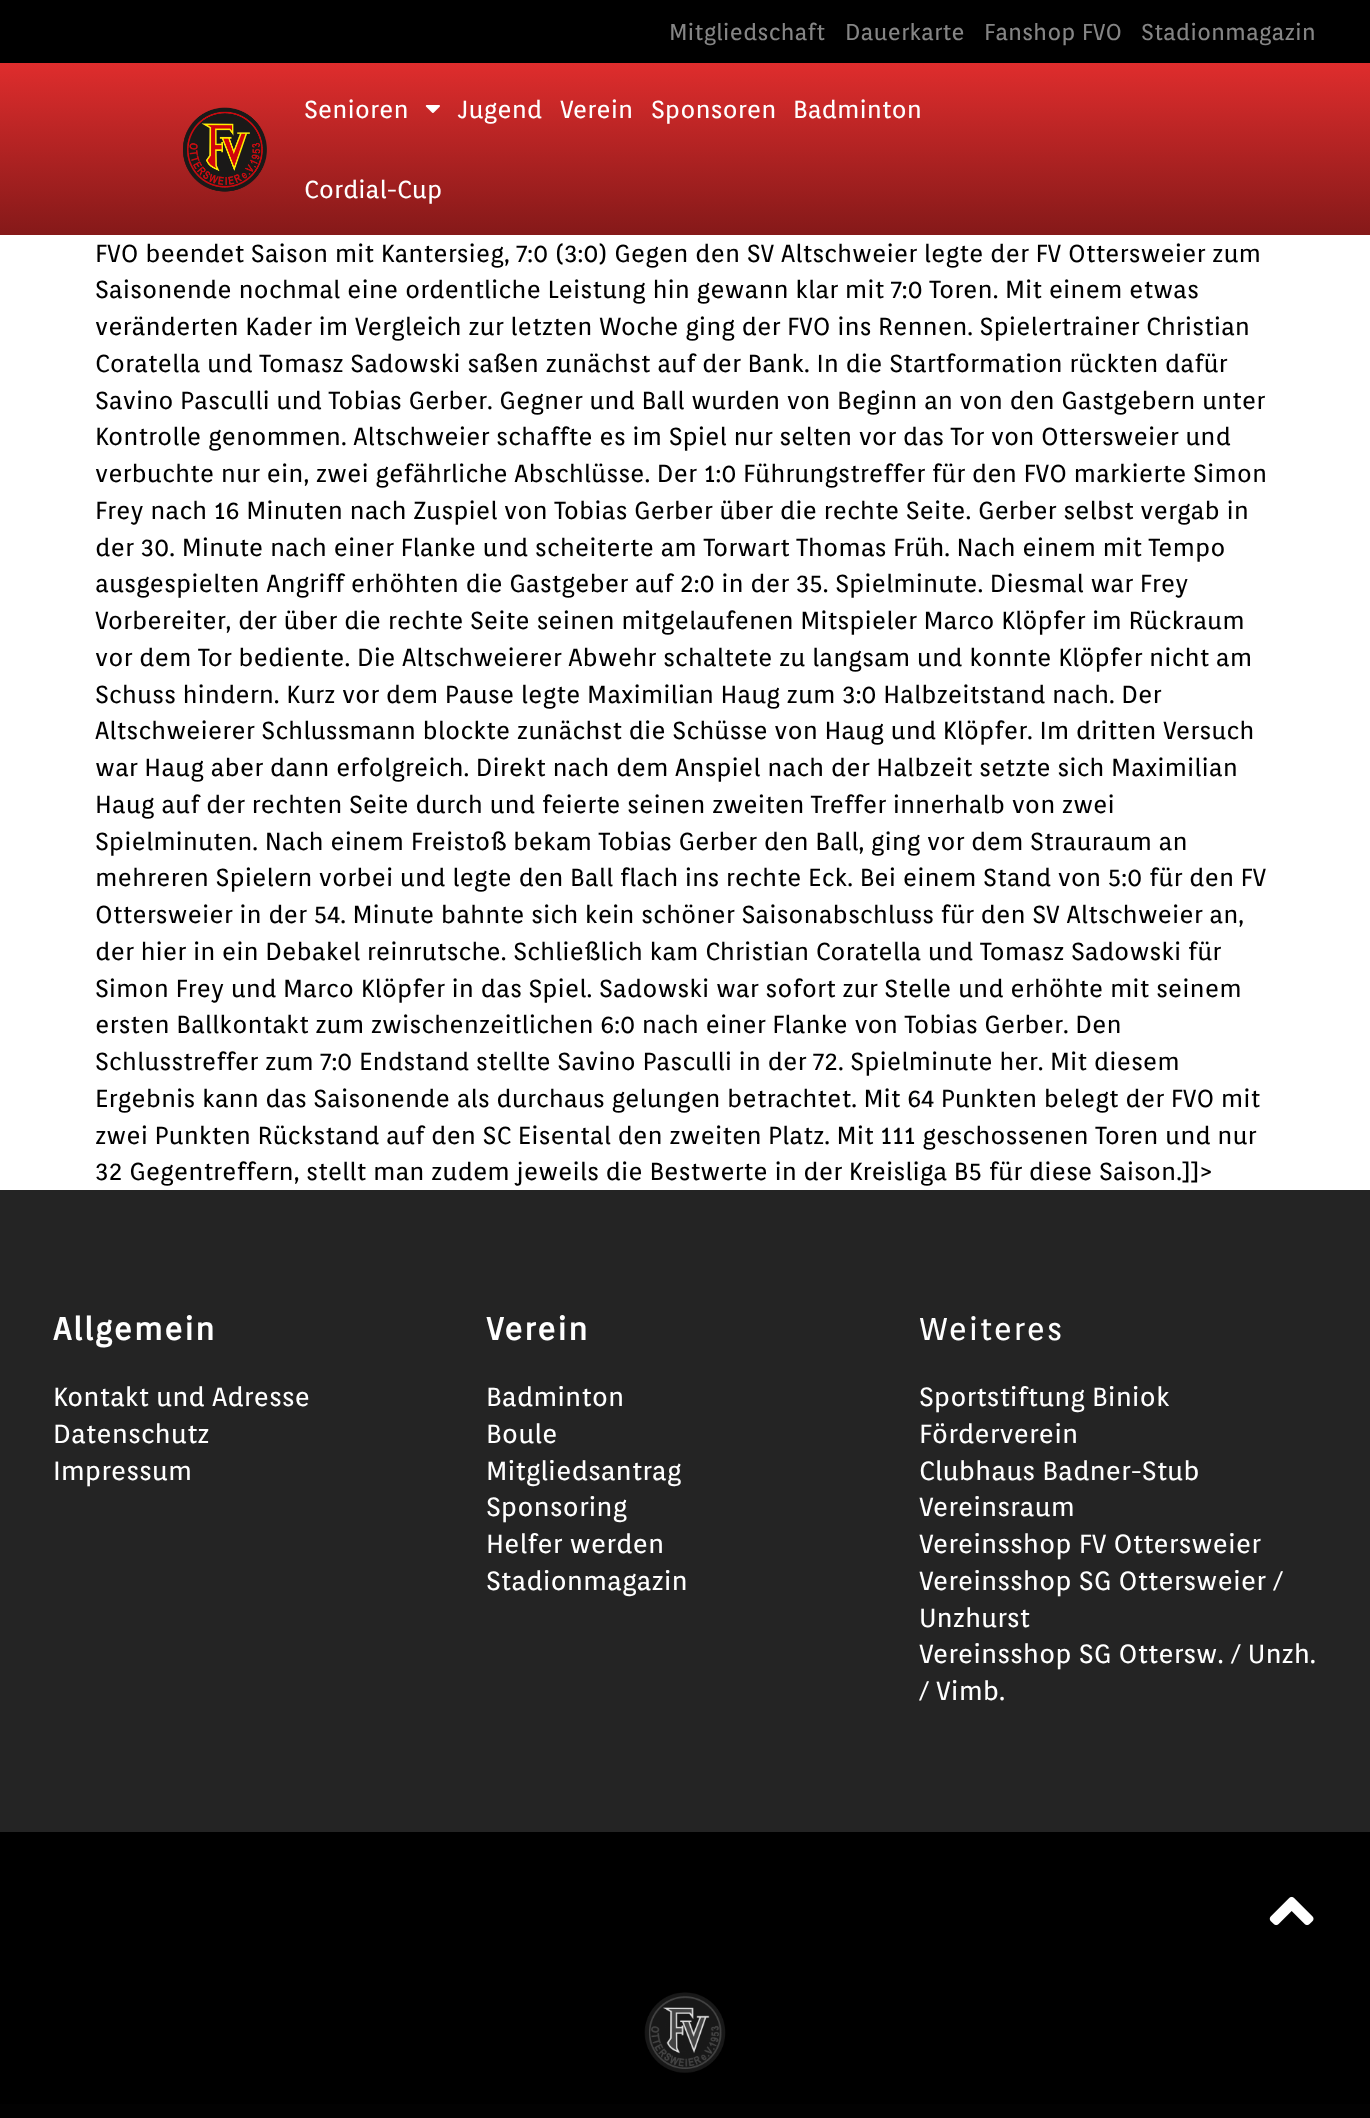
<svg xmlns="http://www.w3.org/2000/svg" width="1370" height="2118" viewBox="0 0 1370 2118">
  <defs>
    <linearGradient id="g1" gradientUnits="userSpaceOnUse" x1="685" y1="63" x2="685" y2="235"><stop offset="0" stop-color="rgb(223,45,45)"/><stop offset="1" stop-color="rgb(133,25,25)"/></linearGradient>
  </defs>
  <rect width="100%" height="100%" fill="rgb(255,255,255)"/>
  <rect x="0" y="0" width="1370" height="63" fill="rgb(0,0,0)"/>
  <g font-family="Orienta" font-size="22.75" fill="rgb(133,133,133)">
    <text x="669" y="40">Mitgliedschaft</text>
    <text x="845" y="40">Dauerkarte</text>
    <text x="984" y="40">Fanshop FVO</text>
    <text x="1141" y="40">Stadionmagazin</text>
  </g>
  <rect x="0" y="63" width="1370" height="172" fill="url(#g1)"/>
  <image x="183" y="107" width="84" height="85" href="pic1.png"/>
  <text x="304" y="118" font-family="Orienta" font-size="24.5" fill="rgb(255,255,255)">Senioren</text>
  <image x="425" y="105" width="15" height="8" href="pic2.png"/>
  <g font-family="Orienta" font-size="24.5" fill="rgb(255,255,255)">
    <text x="458" y="118">Jugend</text>
    <text x="560" y="118">Verein</text>
    <text x="651" y="118">Sponsoren</text>
    <text x="793" y="118">Badminton</text>
    <text x="304" y="198">Cordial-Cup</text>
  </g>
  <g font-family="Orienta" font-size="24.5" fill="rgb(0,0,0)">
    <text>
      <tspan x="95" y="262">FVO beendet Saison mit Kantersieg, 7:0 (3:0) Gegen den SV Altschweier legte der FV Ottersweier zum</tspan>
      <tspan x="95" y="298">Saisonende nochmal eine ordentliche Leistung hin gewann klar mit 7:0 Toren. Mit einem etwas</tspan>
      <tspan x="95" y="335">veränderten Kader im Vergleich zur letzten Woche ging der FVO ins Rennen. Spielertrainer Christian</tspan>
      <tspan x="95" y="372">Coratella und Tomasz Sadowski saßen zunächst auf der Bank. In die Startformation rückten dafür</tspan>
      <tspan x="95" y="409">Savino Pasculli und Tobias Gerber. Gegner und Ball wurden von Beginn an von den Gastgebern unter</tspan>
      <tspan x="95" y="445">Kontrolle genommen. Altschweier schaffte es im Spiel nur selten vor das Tor von Ottersweier und</tspan>
      <tspan x="95" y="482">verbuchte nur ein, zwei gefährliche Abschlüsse. Der 1:0 Führungstreffer für den FVO markierte Simon</tspan>
      <tspan x="95" y="519">Frey nach 16 Minuten nach Zuspiel von Tobias Gerber über die rechte Seite. Gerber selbst vergab in</tspan>
      <tspan x="95" y="556">der 30. Minute nach einer Flanke und scheiterte am Torwart Thomas Früh. Nach einem mit Tempo</tspan>
      <tspan x="95" y="592">ausgespielten Angriff erhöhten die Gastgeber auf 2:0 in der 35. Spielminute. Diesmal war Frey</tspan>
      <tspan x="95" y="629">Vorbereiter, der über die rechte Seite seinen mitgelaufenen Mitspieler Marco Klöpfer im Rückraum</tspan>
      <tspan x="95" y="666">vor dem Tor bediente. Die Altschweierer Abwehr schaltete zu langsam und konnte Klöpfer nicht am</tspan>
      <tspan x="95" y="703">Schuss hindern. Kurz vor dem Pause legte Maximilian Haug zum 3:0 Halbzeitstand nach. Der</tspan>
      <tspan x="95" y="739">Altschweierer Schlussmann blockte zunächst die Schüsse von Haug und Klöpfer. Im dritten Versuch</tspan>
      <tspan x="95" y="776">war Haug aber dann erfolgreich. Direkt nach dem Anspiel nach der Halbzeit setzte sich Maximilian</tspan>
      <tspan x="95" y="813">Haug auf der rechten Seite durch und feierte seinen zweiten Treffer innerhalb von zwei</tspan>
      <tspan x="95" y="850">Spielminuten. Nach einem Freistoß bekam Tobias Gerber den Ball, ging vor dem Strauraum an</tspan>
      <tspan x="95" y="886">mehreren Spielern vorbei und legte den Ball flach ins rechte Eck. Bei einem Stand von 5:0 für den FV</tspan>
      <tspan x="95" y="923">Ottersweier in der 54. Minute bahnte sich kein schöner Saisonabschluss für den SV Altschweier an,</tspan>
      <tspan x="95" y="960">der hier in ein Debakel reinrutsche. Schließlich kam Christian Coratella und Tomasz Sadowski für</tspan>
      <tspan x="95" y="997">Simon Frey und Marco Klöpfer in das Spiel. Sadowski war sofort zur Stelle und erhöhte mit seinem</tspan>
      <tspan x="95" y="1033">ersten Ballkontakt zum zwischenzeitlichen 6:0 nach einer Flanke von Tobias Gerber. Den</tspan>
      <tspan x="95" y="1070">Schlusstreffer zum 7:0 Endstand stellte Savino Pasculli in der 72. Spielminute her. Mit diesem</tspan>
      <tspan x="95" y="1107">Ergebnis kann das Saisonende als durchaus gelungen betrachtet. Mit 64 Punkten belegt der FVO mit</tspan>
      <tspan x="95" y="1144">zwei Punkten Rückstand auf den SC Eisental den zweiten Platz. Mit 111 geschossenen Toren und nur</tspan>
      <tspan x="95" y="1180">32 Gegentreffern, stellt man zudem jeweils die Bestwerte in der Kreisliga B5 für diese Saison.]]&gt;</tspan>
    </text>
  </g>
  <rect x="0" y="1190" width="1370" height="642" fill="rgb(36,36,36)"/>
  <text x="53" y="1340" font-family="Orienta" font-size="31.5" font-weight="bold" letter-spacing="1.5" fill="rgb(255,255,255)">Allgemein</text>
  <g font-family="Orienta" font-size="26.25" fill="rgb(255,255,255)">
    <text>
      <tspan x="53" y="1406">Kontakt und Adresse</tspan>
      <tspan x="53" y="1443">Datenschutz</tspan>
      <tspan x="53" y="1480">Impressum</tspan>
    </text>
  </g>
  <text x="486" y="1340" font-family="Orienta" font-size="31.5" font-weight="bold" letter-spacing="1.5" fill="rgb(255,255,255)">Verein</text>
  <g font-family="Orienta" font-size="26.25" fill="rgb(255,255,255)">
    <text>
      <tspan x="486" y="1406">Badminton</tspan>
      <tspan x="486" y="1443">Boule</tspan>
      <tspan x="486" y="1480">Mitgliedsantrag</tspan>
      <tspan x="486" y="1516">Sponsoring</tspan>
      <tspan x="486" y="1553">Helfer werden</tspan>
      <tspan x="486" y="1590">Stadionmagazin</tspan>
    </text>
  </g>
  <text x="919" y="1340" font-family="Orienta" font-size="31.5" letter-spacing="1.5" fill="rgb(255,255,255)">Weiteres</text>
  <g font-family="Orienta" font-size="26.25" fill="rgb(255,255,255)">
    <text>
      <tspan x="919" y="1406">Sportstiftung Biniok</tspan>
      <tspan x="919" y="1443">Förderverein</tspan>
      <tspan x="919" y="1480">Clubhaus Badner-Stub</tspan>
      <tspan x="919" y="1516">Vereinsraum</tspan>
      <tspan x="919" y="1553">Vereinsshop FV Ottersweier</tspan>
      <tspan x="919" y="1590">Vereinsshop SG Ottersweier /</tspan>
      <tspan x="919" y="1627">Unzhurst</tspan>
      <tspan x="919" y="1663">Vereinsshop SG Ottersw. / Unzh.</tspan>
      <tspan x="919" y="1700">/ Vimb.</tspan>
    </text>
  </g>
  <rect x="0" y="1832" width="1370" height="272" fill="rgb(0,0,0)"/>
  <image x="1269" y="1896" width="45" height="30" href="pic3.png"/>
  <image x="644" y="1992" width="82" height="81" href="pic4.png"/>
  <rect x="0" y="2104" width="1370" height="14" fill="rgb(2,2,2)"/>
</svg>
